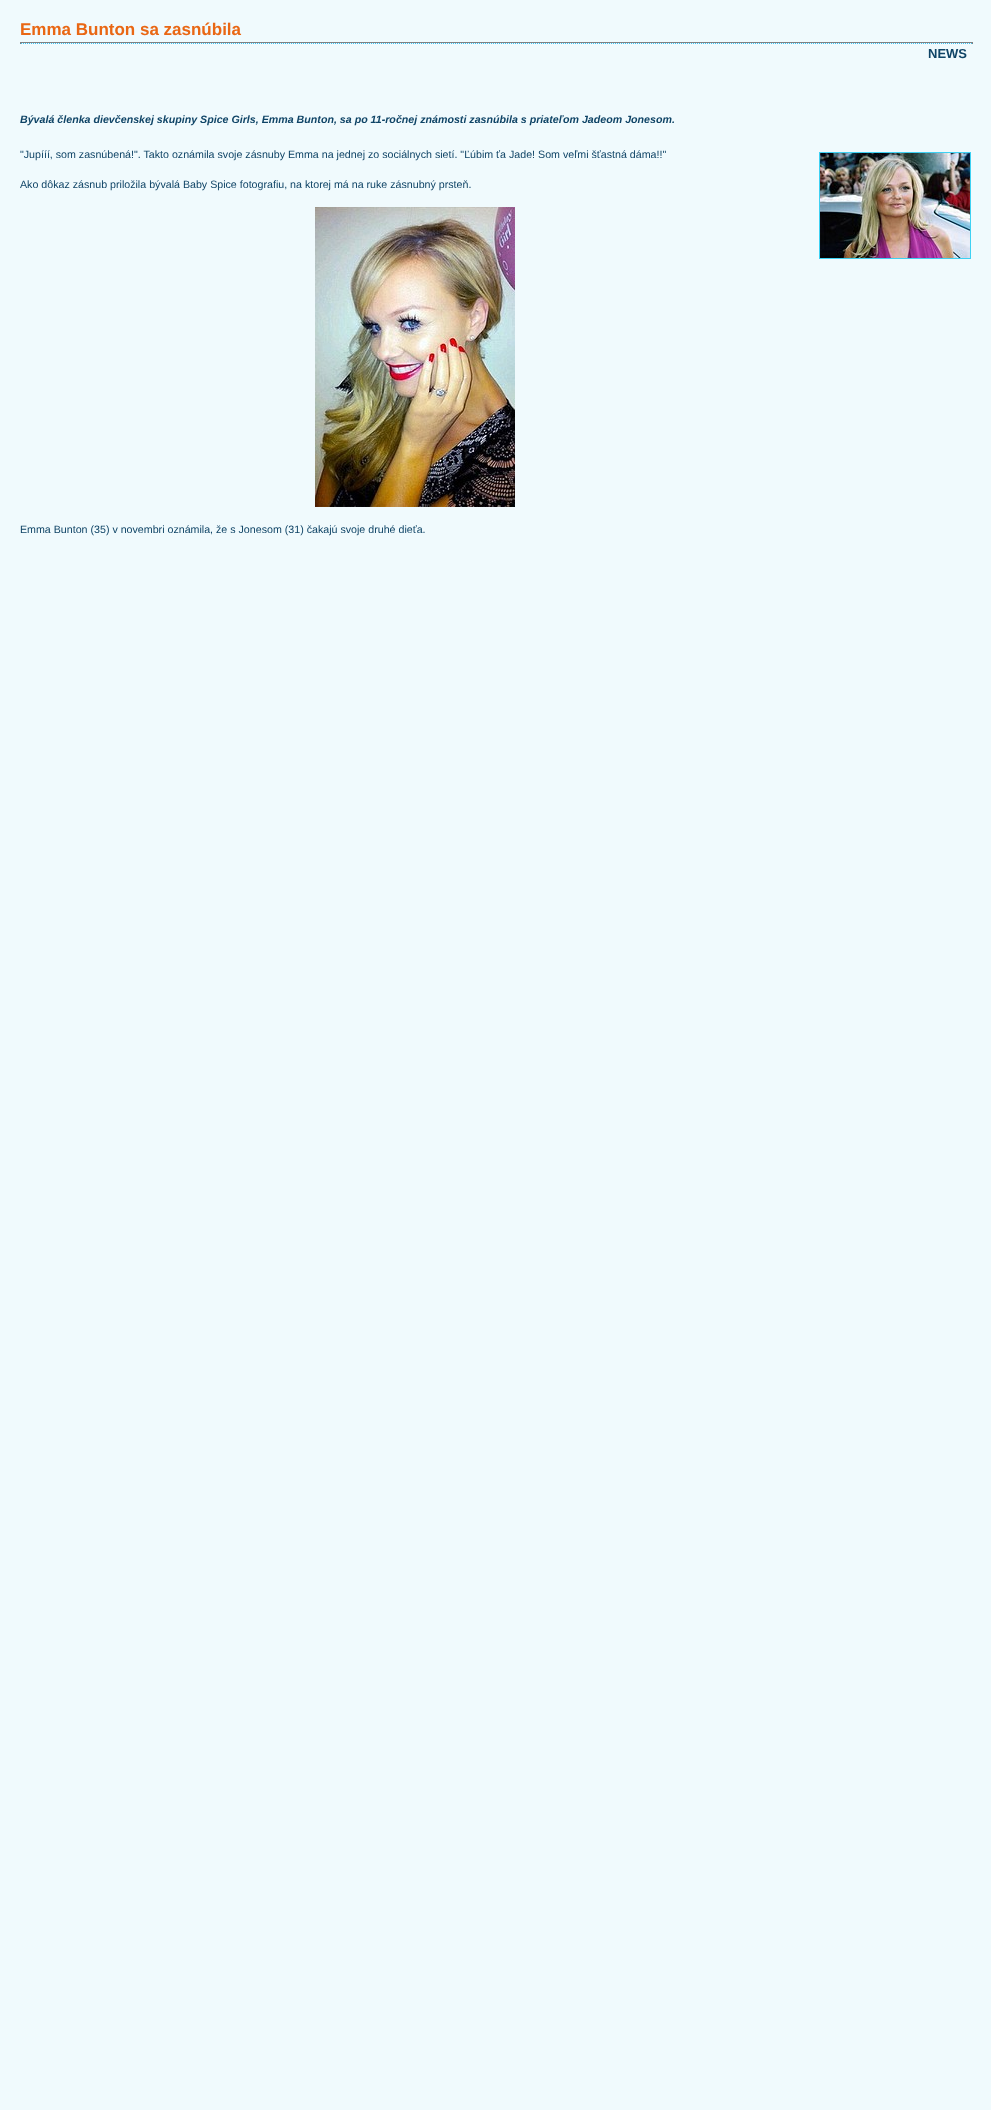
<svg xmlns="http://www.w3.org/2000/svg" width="991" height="2110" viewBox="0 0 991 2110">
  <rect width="100%" height="100%" fill="rgb(240,250,253)"/>
  <text x="20" y="35" font-family="Liberation Sans" font-size="17" font-weight="bold" fill="rgb(233,103,20)">Emma Bunton sa zasnúbila</text>
  <image x="21" y="43" width="951" height="1" href="pic1.png"/>
  <rect x="20" y="42" width="953" height="1" fill="rgb(128,128,128)"/>
  <rect x="972" y="42" width="1" height="2" fill="rgb(128,128,128)"/>
  <rect x="20" y="42" width="1" height="2" fill="rgb(128,128,128)"/>
  <text x="928" y="58" font-family="Liberation Sans" font-size="13" font-weight="bold" fill="rgb(15,68,102)">NEWS</text>
  <text x="20" y="123" font-family="Liberation Sans" font-size="10.67" font-weight="bold" font-style="italic" fill="rgb(15,68,102)">Bývalá členka dievčenskej skupiny Spice Girls, Emma Bunton, sa po 11-ročnej známosti zasnúbila s priateľom Jadeom Jonesom.</text>
  <text x="20" y="158" font-family="Liberation Sans" font-size="10.67" fill="rgb(15,68,102)">"Jupííí, som zasnúbená!". Takto oznámila svoje zásnuby Emma na jednej zo sociálnych sietí. "Ľúbim ťa Jade! Som veľmi šťastná dáma!!"</text>
  <rect x="819.5" y="152.5" width="151" height="106" fill="none" stroke="rgb(62,209,243)"/>
  <image x="820" y="153" width="150" height="105" href="pic2.png"/>
  <text x="20" y="188" font-family="Liberation Sans" font-size="10.67" fill="rgb(15,68,102)">Ako dôkaz zásnub priložila bývalá Baby Spice fotografiu, na ktorej má na ruke zásnubný prsteň.</text>
  <image x="315" y="207" width="200" height="300" href="pic3.png"/>
  <text x="20" y="533" font-family="Liberation Sans" font-size="10.67" fill="rgb(15,68,102)">Emma Bunton (35) v novembri oznámila, že s Jonesom (31) čakajú svoje druhé dieťa.</text>
</svg>
